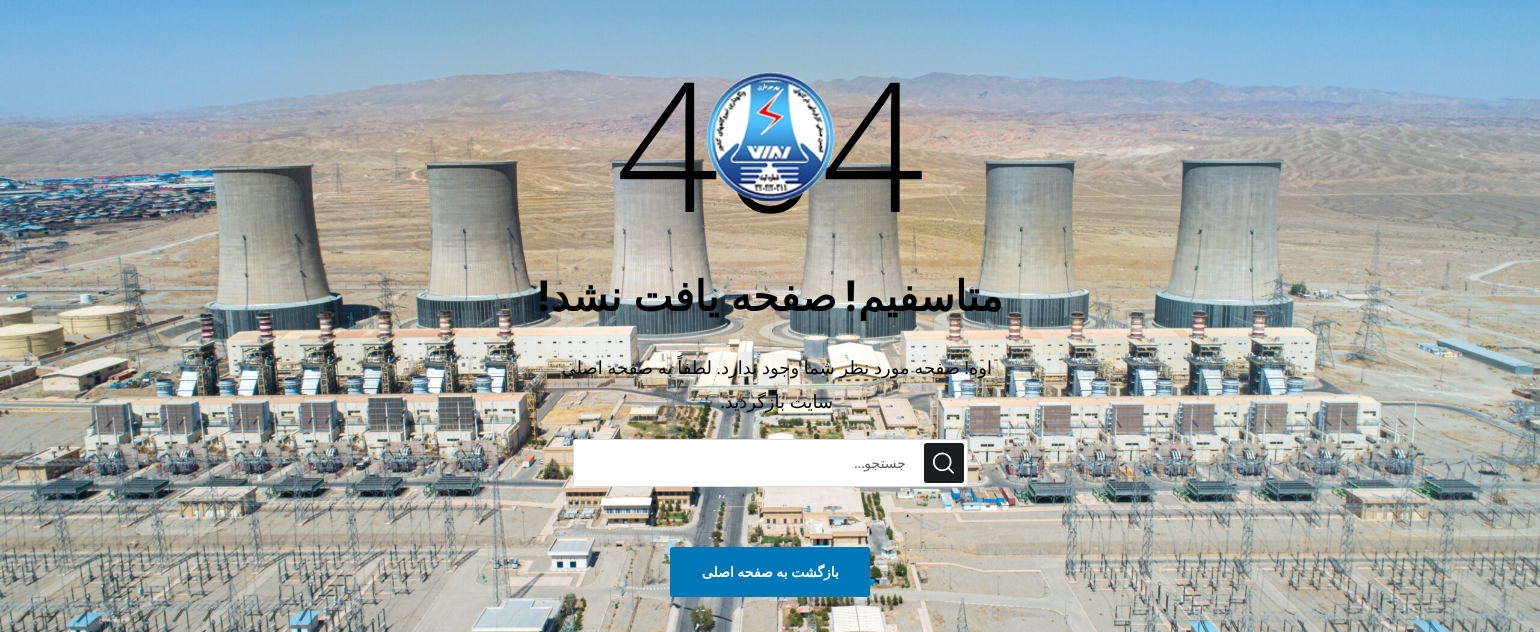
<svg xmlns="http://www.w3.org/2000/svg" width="1540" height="632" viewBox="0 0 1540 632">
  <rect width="100%" height="100%" fill="rgb(255,255,255)"/>
  <image x="0" y="0" width="1540" height="632" href="pic1.png"/>
  <text x="616" y="212" font-family="Open Sans" font-size="180" font-weight="300" fill="rgb(0,0,0)">404</text>
  <image x="706" y="72" width="129" height="131" href="pic2.png"/>
  <text x="1003" y="311" font-family="DejaVu Sans" font-size="42" font-weight="bold" direction="rtl" fill="rgb(0,0,0)">متاسفیم</text>
  <text x="858" y="311" font-family="Inter" font-size="42" font-weight="bold" direction="rtl" fill="rgb(0,0,0)">!</text>
  <text x="837" y="311" word-spacing="-2" font-family="DejaVu Sans" font-size="42" font-weight="bold" direction="rtl" fill="rgb(0,0,0)">صفحه یافت نشد</text>
  <text x="551" y="311" font-family="Inter" font-size="42" font-weight="bold" direction="rtl" fill="rgb(0,0,0)">!</text>
  <text x="992" y="374" font-family="DejaVu Sans" font-size="18" direction="rtl" fill="rgb(0,0,0)">اوه</text>
  <text x="969" y="374" font-family="Open Sans" font-size="18" direction="rtl" fill="rgb(0,0,0)">!</text>
  <text x="960" y="374" word-spacing="-1" font-family="DejaVu Sans" font-size="18" direction="rtl" fill="rgb(0,0,0)">صفحه مورد نظر شما وجود ندارد</text>
  <text x="721" y="374" font-family="Open Sans" font-size="18" direction="rtl" fill="rgb(0,0,0)">.</text>
  <g font-family="DejaVu Sans" font-size="18" direction="rtl" fill="rgb(0,0,0)">
    <text x="712" y="374" word-spacing="-1">لطفاً به صفحه اصلی</text>
    <text x="833" y="408" word-spacing="-1">سایت بازگردید</text>
  </g>
  <text x="725" y="408" font-family="Open Sans" font-size="18" direction="rtl" fill="rgb(0,0,0)">.</text>
  <rect x="573.5" y="439.5" width="394" height="47" rx="2.5" fill="rgb(255,255,255)" stroke="rgb(219,219,219)"/>
  <rect x="924" y="443" width="40" height="40" rx="3" fill="rgb(27,29,33)"/>
  <image x="933" y="452" width="21" height="22" href="pic3.png"/>
  <text x="906" y="468" font-family="DejaVu Sans" font-size="14" direction="rtl" fill="rgb(95,95,95)">جستجو</text>
  <text x="865" y="468" font-family="Open Sans" font-size="14" direction="rtl" fill="rgb(95,95,95)">…</text>
  <rect x="670" y="547" width="200" height="50" rx="3" fill="rgb(0,119,182)"/>
  <text x="839" y="577" word-spacing="-1" font-family="DejaVu Sans" font-size="14" font-weight="bold" direction="rtl" fill="rgb(255,255,255)">بازگشت به صفحه اصلی</text>
</svg>
